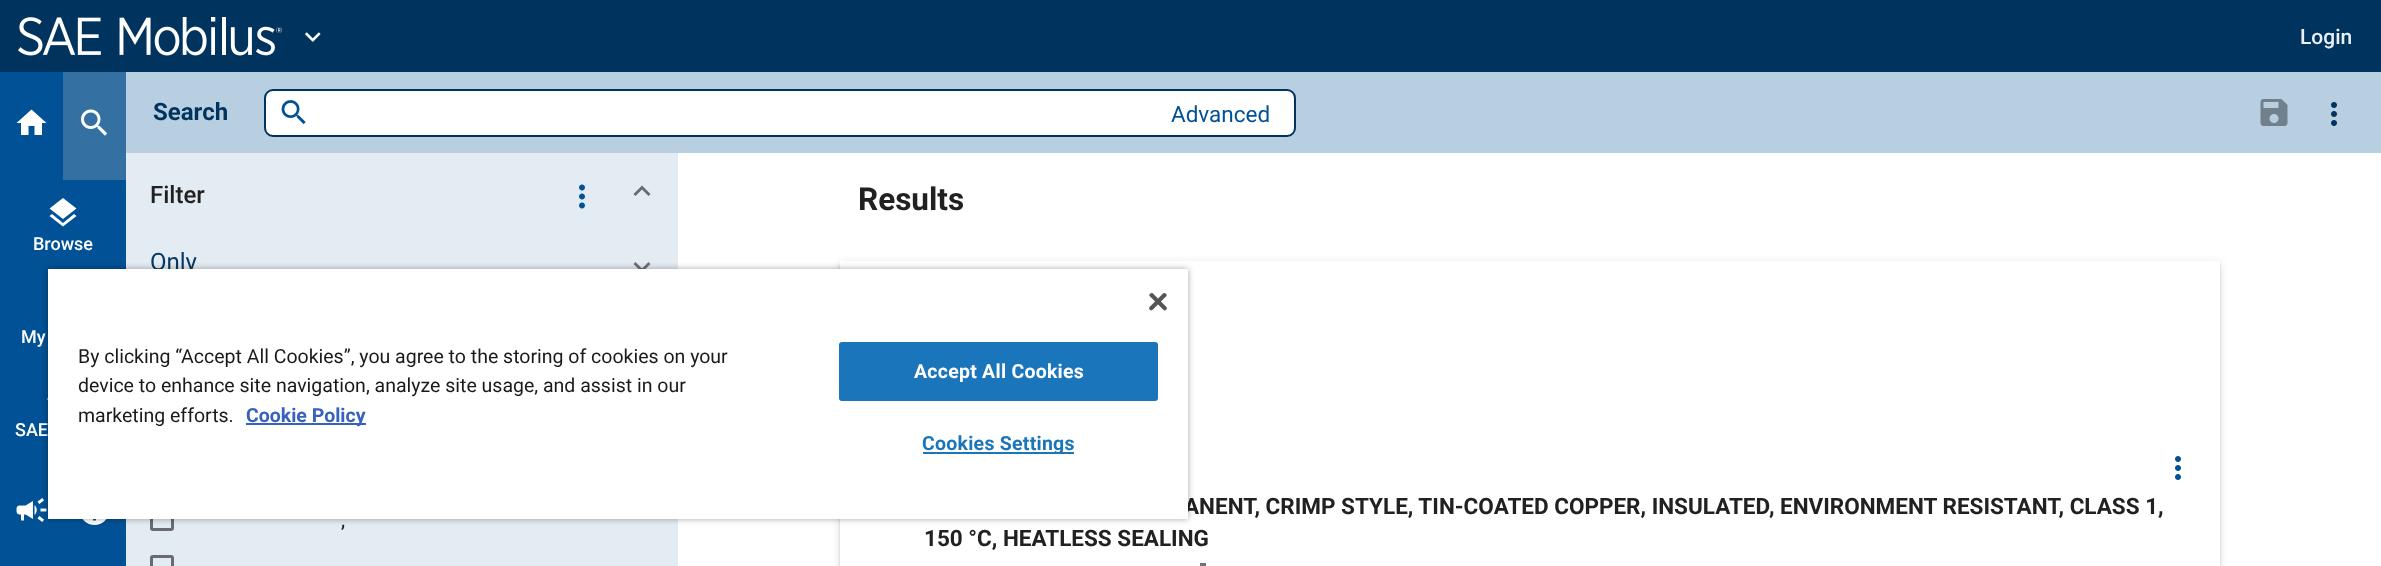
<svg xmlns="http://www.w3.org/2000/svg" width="2381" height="566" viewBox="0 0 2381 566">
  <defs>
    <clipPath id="clip1"><path d="M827 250H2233V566H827ZM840 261H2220V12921H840Z" clip-rule="evenodd"/></clipPath>
    <clipPath id="clip2"><path d="M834 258H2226V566H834ZM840 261H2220V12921H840Z" clip-rule="evenodd"/></clipPath>
  </defs>
  <rect width="100%" height="100%" fill="rgb(255,255,255)"/>
  <rect x="0" y="0" width="2381" height="72" fill="rgb(0,51,93)"/>
  <image x="18" y="17" width="264" height="39" href="pic1.png"/>
  <image x="305" y="32" width="16" height="10" href="pic2.png"/>
  <text x="2300" y="44" font-family="Roboto" font-size="21" font-weight="500" fill="rgb(233,240,246)">Login</text>
  <rect x="0" y="72" width="126" height="494" fill="rgb(0,81,149)"/>
  <path d="M28.5 135H21V123H16.5L31.5 109.5L46.5 123H42V135H34.5V126H28.5Z" fill="rgb(255,255,255)"/>
  <rect x="63" y="72" width="63" height="108" fill="rgb(52,113,162)"/>
  <image x="81" y="109" width="27" height="27" href="pic3.png"/>
  <path d="M63 219L49.5 208.5L63 198L76.5 208.5ZM63 223L74 214L76.5 216L63 226.5L49.5 216L52 214Z" fill="rgb(255,255,255)"/>
  <g font-family="Roboto" font-size="18" font-weight="500" fill="rgb(255,255,255)">
    <text x="33" y="250">Browse</text>
    <text x="21" y="343">My</text>
  </g>
  <image x="46" y="398" width="2" height="2" href="pic4.png"/>
  <text x="15" y="436" font-family="Roboto" font-size="18" font-weight="500" fill="rgb(255,255,255)">SAE</text>
  <image x="16" y="498" width="31" height="24" href="pic5.png"/>
  <image x="82" y="519" width="25" height="6" href="pic6.png"/>
  <rect x="126" y="72" width="2255" height="81" fill="rgb(184,207,225)"/>
  <text x="153" y="120" font-family="Roboto" font-size="24" font-weight="bold" fill="rgb(0,51,93)">Search</text>
  <rect x="265" y="90" width="1030" height="46" rx="8" fill="rgb(255,255,255)" stroke="rgb(0,51,93)" stroke-width="2"/>
  <image x="281" y="100" width="25" height="25" href="pic7.png"/>
  <text x="1171" y="122" font-family="Roboto" font-size="22.5" fill="rgb(0,81,149)">Advanced</text>
  <image x="2260" y="99" width="28" height="27" href="pic8.png"/>
  <image x="2331" y="102" width="6" height="24" href="pic9.png"/>
  <rect x="126" y="153" width="552" height="413" fill="rgb(227,235,243)"/>
  <text x="150" y="203" font-family="Roboto" font-size="24" font-weight="500" fill="rgb(33,33,33)">Filter</text>
  <path d="M633.5 194L642 185.5V189.5L635.5 196ZM642 185.5L650.5 194L648.5 196L642 189.5Z" fill="rgb(104,108,112)"/>
  <image x="579" y="184" width="6" height="25" href="pic10.png"/>
  <text x="150" y="270" font-family="Roboto" font-size="24" fill="rgb(9,58,99)">Only</text>
  <path d="M650.5 264L642 272.5V268.5L648.5 262ZM642 272.5L633.5 264L635.5 262L642 268.5Z" fill="rgb(109,113,117)"/>
  <rect x="151.5" y="508.5" width="21" height="21" rx="1.5" fill="none" stroke="rgb(104,108,112)" stroke-width="3"/>
  <text x="341" y="527" font-family="Roboto" font-size="21" fill="rgb(33,33,33)">,</text>
  <rect x="151.5" y="556.5" width="21" height="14" rx="1.5" fill="none" stroke="rgb(104,108,112)" stroke-width="3"/>
  <text x="858" y="210" font-family="Roboto" font-size="31.5" font-weight="bold" fill="rgb(33,33,33)">Results</text>
  <g clip-path="url(#clip1)">
    <rect x="840" y="263" width="1380" height="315" fill="rgba(0,0,0,0.12)" filter="blur(4px)"/>
  </g>
  <g clip-path="url(#clip2)">
    <rect x="840" y="264" width="1380" height="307" fill="rgba(0,0,0,0.14)" filter="blur(1.5px)"/>
  </g>
  <image x="2175" y="456" width="6" height="24" href="pic11.png"/>
  <g font-family="Roboto" font-size="22.5" font-weight="bold" fill="rgb(33,33,33)">
    <text x="1184" y="514">ANENT, CRIMP STYLE, TIN-COATED COPPER, INSULATED, ENVIRONMENT RESISTANT, CLASS 1,</text>
    <text x="924" y="546">150 °C, HEATLESS SEALING</text>
  </g>
  <rect x="1200" y="563" width="6" height="3" fill="rgb(113,114,117)"/>
  <rect x="48" y="269" width="1140" height="250" fill="rgba(0,0,0,0.35)" filter="blur(3px)"/>
  <rect x="48" y="269" width="1140" height="250" fill="rgb(255,255,255)"/>
  <image x="1149" y="293" width="18" height="18" href="pic12.png"/>
  <g font-family="Roboto" font-size="19.5" fill="rgb(26,26,26)">
    <text>
      <tspan x="78" y="363">By clicking “Accept All Cookies”, you agree to the storing of cookies on your</tspan>
      <tspan x="78" y="392">device to enhance site navigation, analyze site usage, and assist in our</tspan>
      <tspan x="78" y="422">marketing efforts.</tspan>
    </text>
  </g>
  <rect x="246" y="423" width="120" height="2" fill="rgb(56,96,190)"/>
  <text x="246" y="422" font-family="Roboto" font-size="19.5" font-weight="bold" fill="rgb(56,96,190)">Cookie Policy</text>
  <rect x="840" y="343" width="317" height="57" rx="2" fill="rgb(27,117,187)" stroke="rgb(27,117,187)" stroke-width="2"/>
  <text x="914" y="378" font-family="Roboto" font-size="19.5" font-weight="bold" letter-spacing="0.25" fill="rgb(255,255,255)">Accept All Cookies</text>
  <rect x="923" y="452" width="151" height="2" fill="rgb(27,117,187)"/>
  <text x="922" y="450" font-family="Roboto" font-size="19.5" font-weight="bold" letter-spacing="0.25" fill="rgb(27,117,187)">Cookies Settings</text>
</svg>
